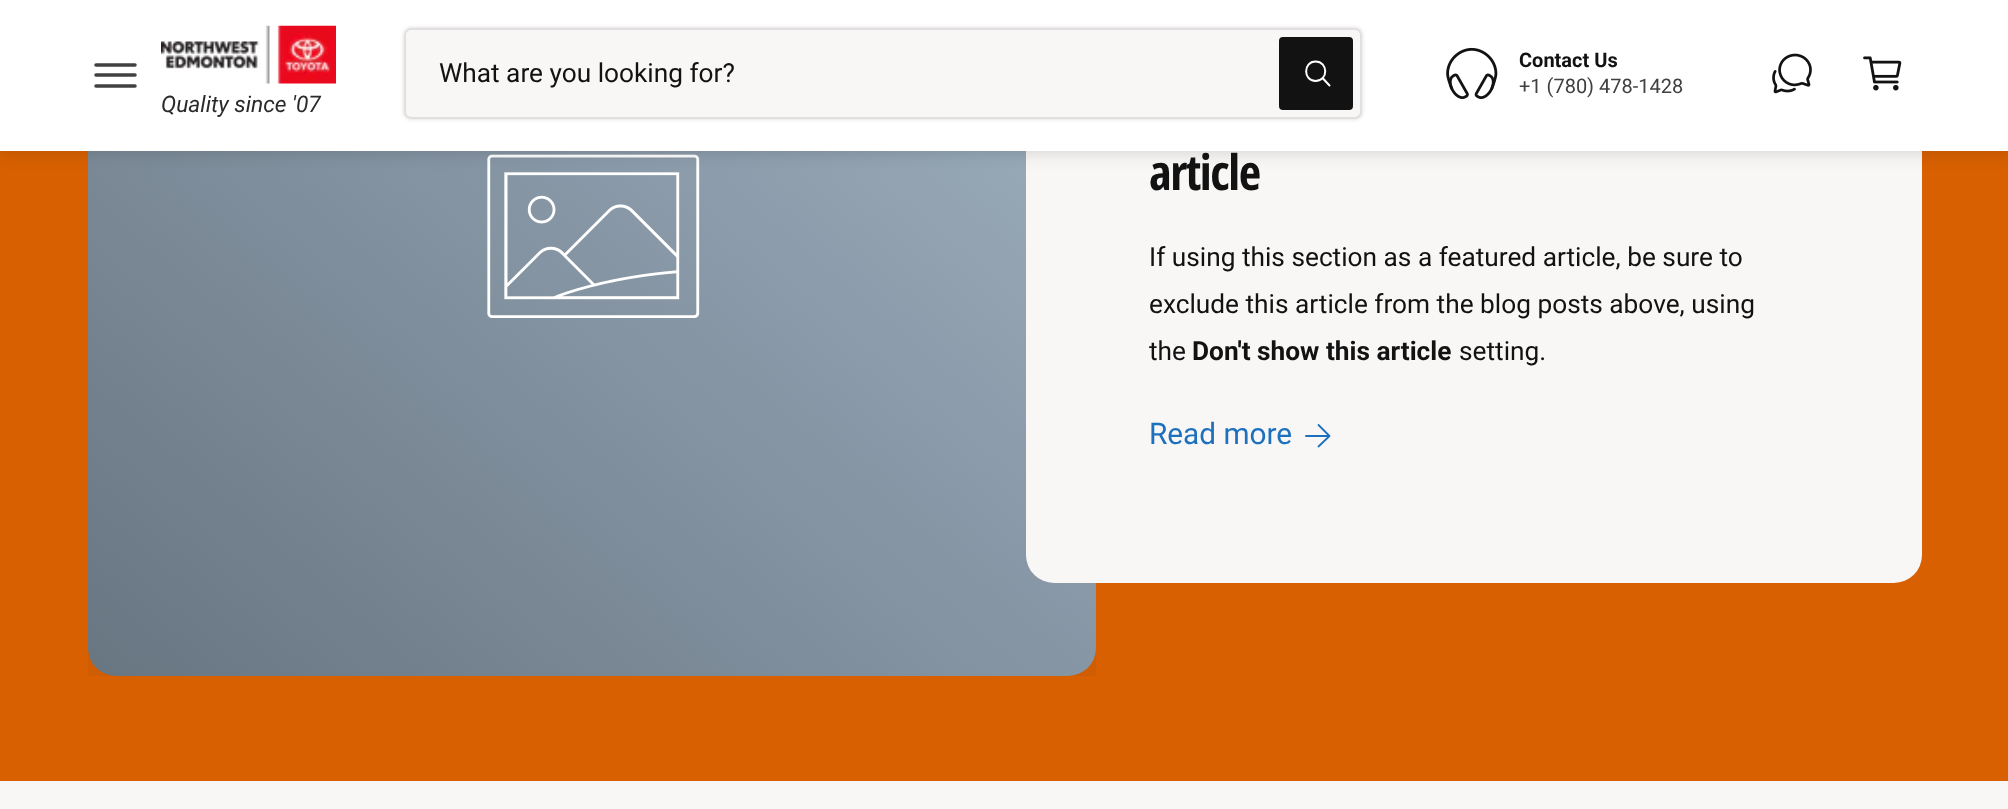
<svg xmlns="http://www.w3.org/2000/svg" width="2008" height="809" viewBox="0 0 2008 809">
  <defs>
    <linearGradient id="g1" gradientUnits="userSpaceOnUse" x1="158" y1="737" x2="1025" y2="-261"><stop offset="0" stop-color="rgb(108,122,135)"/><stop offset="1" stop-color="rgb(172,190,207)"/></linearGradient>
    <clipPath id="clip1"><path d="M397 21H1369V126H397ZM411 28H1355C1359 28 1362 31 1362 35V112C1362 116 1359 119 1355 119H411C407 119 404 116 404 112V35C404 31 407 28 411 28Z" clip-rule="evenodd"/></clipPath>
  </defs>
  <rect width="100%" height="100%" fill="rgb(249,247,246)"/>
  <rect x="0" y="151" width="2008" height="630" fill="rgb(216,96,0)"/>
  <rect x="88" y="-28" width="1008" height="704" rx="28" fill="url(#g1)"/>
  <rect x="88" y="151" width="1008" height="525" fill="rgba(18,18,18,0.04)"/>
  <image x="487" y="154" width="213" height="164" href="pic5.png"/>
  <rect x="1026" y="-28" width="896" height="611" rx="28" fill="rgb(249,247,246)"/>
  <rect x="0" y="2" width="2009" height="150" fill="rgba(0,0,0,0.15)" filter="blur(9px)"/>
  <rect x="0" y="0" width="2008" height="151" fill="rgb(255,255,255)"/>
  <path d="M96 65H135M96 75H135M96 86H135" fill="none" stroke="rgb(65,65,65)" stroke-width="3.5" stroke-linecap="round"/>
  <rect x="404" y="28" width="958" height="91" rx="7" fill="rgb(249,247,246)"/>
  <rect x="1279" y="37" width="74" height="73" rx="4" fill="rgb(18,18,18)"/>
  <path d="M1315.5 61.5C1303 61.5 1303 81 1315.5 81C1328.5 81 1328.5 61.5 1315.5 61.5Z" fill="none" stroke="rgb(255,255,255)" stroke-width="2"/>
  <path d="M1323 78.5L1329.5 85.5" fill="none" stroke="rgb(255,255,255)" stroke-width="2" stroke-linecap="round"/>
  <g clip-path="url(#clip1)">
    <rect x="404" y="28" width="958" height="91" rx="7" fill="rgba(0,0,0,0.15)" filter="blur(2px)"/>
  </g>
  <rect x="405" y="29" width="956" height="89" rx="6" fill="none" stroke="rgba(18,18,18,0.1)" stroke-width="2"/>
  <text x="439" y="82" font-family="Roboto" font-size="26.25" fill="rgb(18,18,18)">What are you looking for?</text>
  <image x="1446" y="47" width="52" height="52" href="pic1.png"/>
  <text x="1519" y="67" font-family="Roboto" font-size="20" font-weight="bold" fill="rgb(18,18,18)">Contact Us</text>
  <text x="1519" y="93" font-family="Roboto" font-size="20" fill="rgb(65,65,65)">+1 (780) 478-1428</text>
  <image x="1772" y="53" width="40" height="41" href="pic2.png"/>
  <image x="1863" y="56" width="39" height="35" href="pic3.png"/>
  <image x="161" y="25" width="175" height="59" href="pic4.png"/>
  <text x="161" y="112" font-family="Roboto" font-size="22.75" font-style="italic" fill="rgb(42,42,42)">Quality since '07</text>
  <text x="1149" y="190" font-family="Open Sans Condensed" font-size="49" font-weight="bold" letter-spacing="-1.5" fill="rgb(18,18,18)">article</text>
  <g font-family="Roboto" font-size="26.25" fill="rgb(18,18,18)">
    <text>
      <tspan x="1149" y="266">If using this section as a featured article, be sure to</tspan>
      <tspan x="1149" y="313">exclude this article from the blog posts above, using</tspan>
      <tspan x="1149" y="360">the</tspan>
    </text>
  </g>
  <text x="1192" y="360" font-family="Roboto" font-size="26.25" font-weight="bold" fill="rgb(18,18,18)">Don't show this article</text>
  <text x="1459" y="360" font-family="Roboto" font-size="26.25" fill="rgb(18,18,18)">setting.</text>
  <text x="1149" y="444" font-family="Roboto" font-size="29.75" fill="rgb(28,112,190)">Read more</text>
  <path d="M1318.5 425L1329.5 436L1318.5 446.5M1328 436H1306" fill="none" stroke="rgb(28,112,190)" stroke-width="1.8" stroke-linecap="round" stroke-linejoin="round"/>
</svg>
